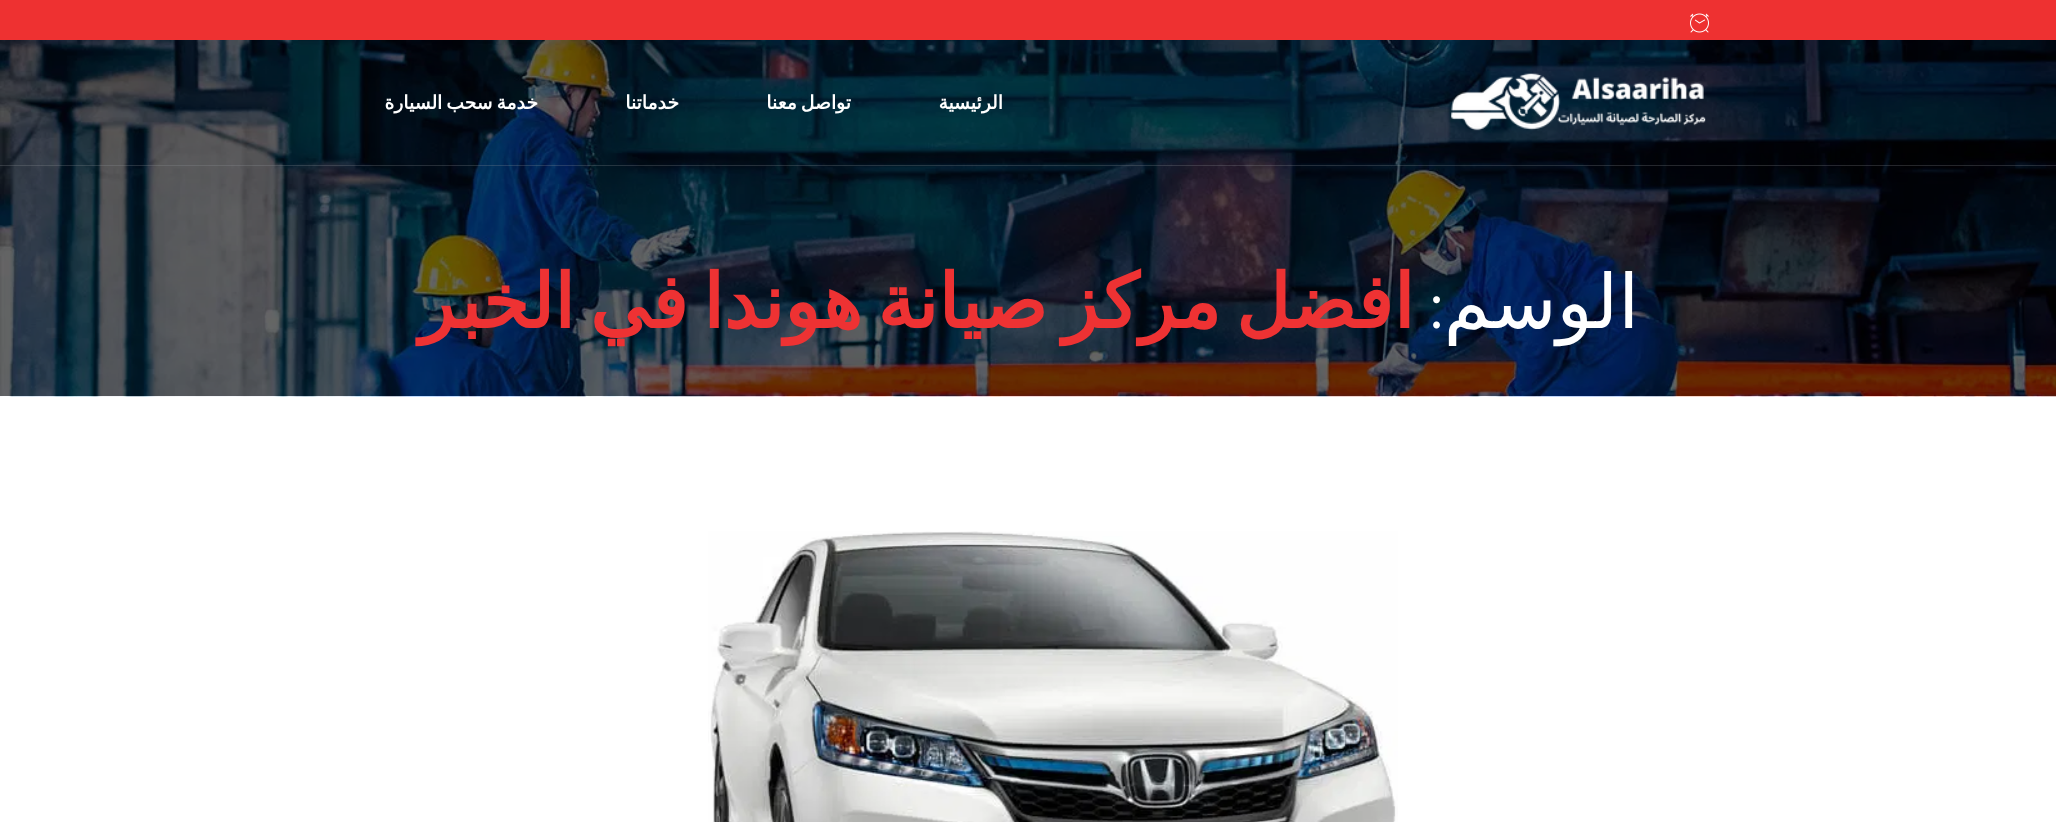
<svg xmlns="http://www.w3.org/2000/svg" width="2056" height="822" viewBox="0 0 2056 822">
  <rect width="100%" height="100%" fill="rgb(255,255,255)"/>
  <rect x="0" y="0" width="2056" height="40" fill="rgb(238,49,49)"/>
  <image x="1690" y="13" width="19" height="20" href="pic1.png"/>
  <image x="0" y="40" width="2056" height="357" href="pic3.png"/>
  <rect x="0" y="165" width="2056" height="1" fill="rgba(149,153,155,0.25)"/>
  <image x="1451" y="73" width="255" height="58" href="pic2.png"/>
  <g font-family="DejaVu Sans" font-size="18.75" font-weight="bold" direction="rtl" fill="rgb(255,255,255)">
    <text x="1003" y="109">الرئيسية</text>
    <text x="851" y="109" word-spacing="-2">تواصل معنا</text>
    <text x="679" y="109">خدماتنا</text>
    <text x="538" y="109" word-spacing="-2">خدمة سحب السيارة</text>
  </g>
  <text x="1639" y="328" font-family="DejaVu Sans" font-size="75" direction="rtl" fill="rgb(255,255,255)">الوسم</text>
  <text x="1444" y="328" font-family="Dosis" font-size="75" direction="rtl" fill="rgb(255,255,255)">:</text>
  <text x="1414" y="328" word-spacing="-9" font-family="DejaVu Sans" font-size="75" font-weight="bold" direction="rtl" fill="rgb(238,50,51)">افضل مركز صيانة هوندا في الخبر</text>
  <image x="708" y="531" width="690" height="291" href="pic4.png"/>
</svg>
